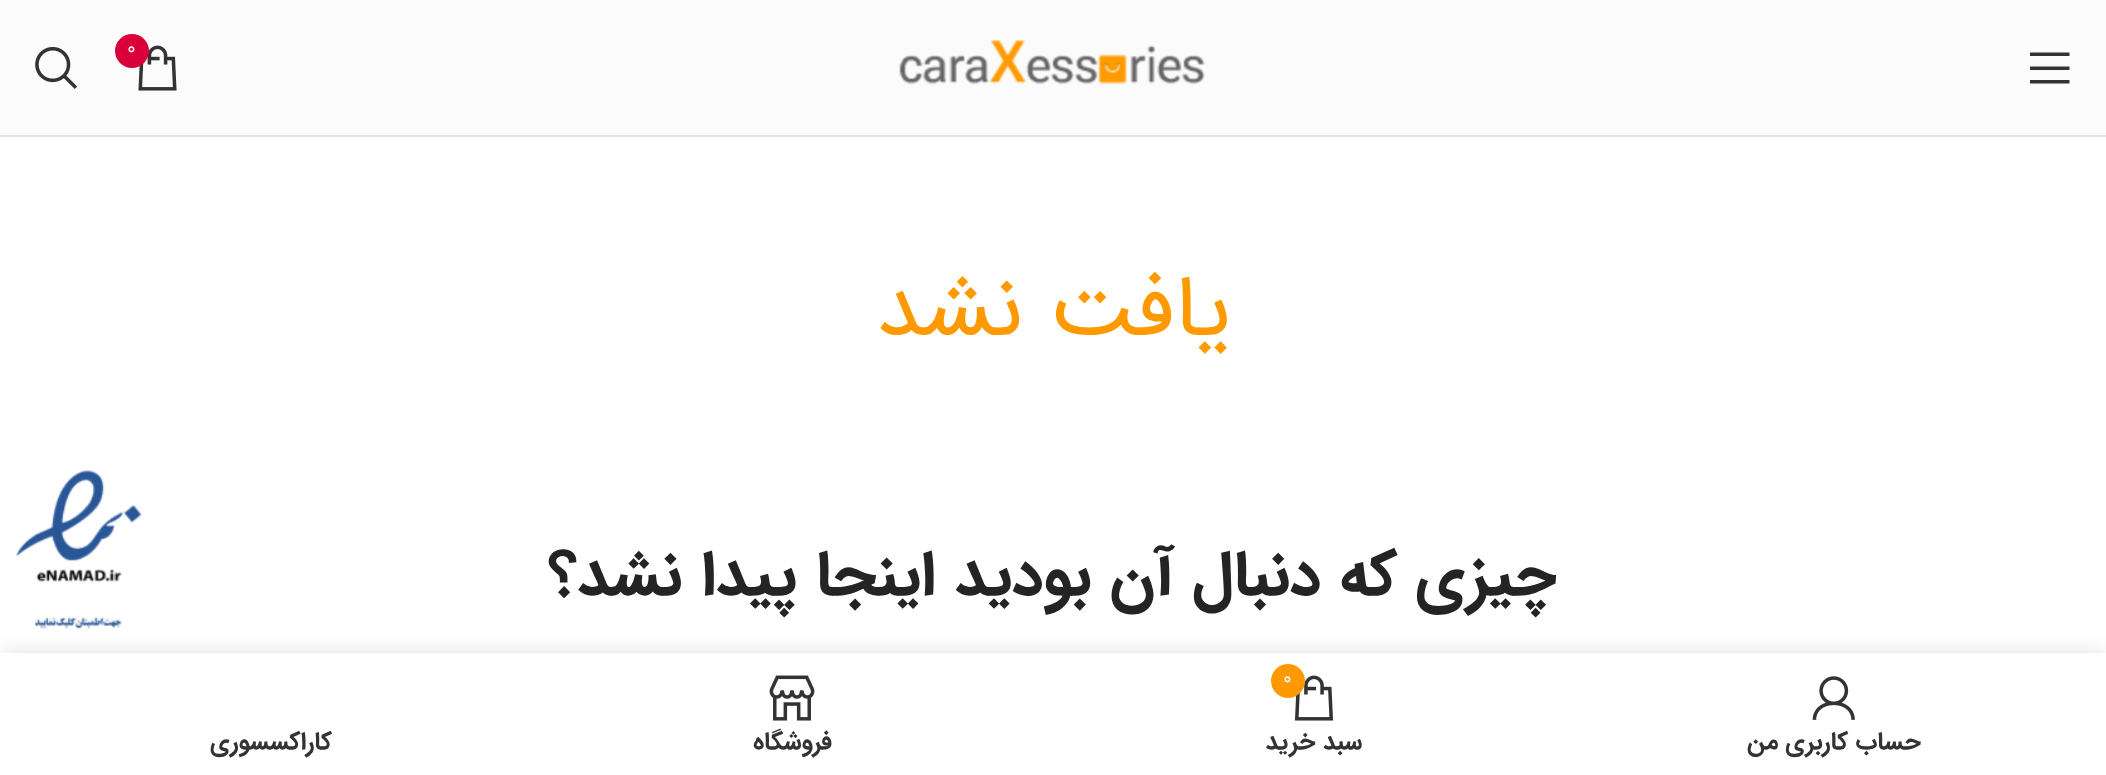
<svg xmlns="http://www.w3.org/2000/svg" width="2106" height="775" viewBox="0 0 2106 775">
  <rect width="100%" height="100%" fill="rgb(255,255,255)"/>
  <rect x="0" y="0" width="2106" height="135" fill="rgb(251,251,251)"/>
  <rect x="0" y="135" width="2106" height="2" fill="rgb(227,227,227)"/>
  <image x="899" y="40" width="306" height="45" href="pic1.png"/>
  <image x="138" y="45" width="39" height="46" href="pic2.png"/>
  <circle cx="132" cy="51" r="17" fill="rgb(217,0,58)"/>
  <text x="127" y="54" font-family="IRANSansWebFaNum" font-size="20" fill="rgb(255,255,255)">0</text>
  <image x="35" y="47" width="43" height="42" href="pic3.png"/>
  <path d="M2030 56H2069.5V52.5H2030ZM2030 70H2069.5V66.5H2030ZM2030 83.5H2069.5V80H2030Z" fill="rgb(51,51,51)"/>
  <text x="1231" y="335" font-family="IRANSansWebFaNum" font-size="88.5" direction="rtl" fill="rgb(254,154,0)">یافت نشد</text>
  <text x="1557" y="594" font-family="IRANSansWebFaNum" font-size="63" font-weight="bold" direction="rtl" fill="rgb(36,36,36)">چیزی که دنبال آن بودید اینجا پیدا نشد؟</text>
  <rect x="0" y="653" width="2106" height="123" fill="rgba(0,0,0,0.12)" filter="blur(10px)"/>
  <image x="16" y="469" width="126" height="160" href="pic4.png"/>
  <rect x="0" y="653" width="2106" height="122" fill="rgb(255,255,255)"/>
  <image x="1812" y="676" width="43" height="44" href="pic5.png"/>
  <text x="1921" y="749" font-family="IRANSansWebFaNum" font-size="24.75" font-weight="bold" direction="rtl" fill="rgb(51,51,51)">حساب کاربری من</text>
  <image x="1294" y="675" width="40" height="46" href="pic6.png"/>
  <circle cx="1288" cy="681" r="17" fill="rgb(254,154,0)"/>
  <text x="1283" y="684" font-family="IRANSansWebFaNum" font-size="20" fill="rgb(255,255,255)">0</text>
  <text x="1362" y="749" font-family="IRANSansWebFaNum" font-size="24.75" font-weight="bold" direction="rtl" fill="rgb(51,51,51)">سبد خرید</text>
  <image x="769" y="675" width="46" height="46" href="pic7.png"/>
  <g font-family="IRANSansWebFaNum" font-size="24.75" font-weight="bold" direction="rtl" fill="rgb(51,51,51)">
    <text x="832" y="749">فروشگاه</text>
    <text x="332" y="749">کاراکسسوری</text>
  </g>
</svg>
